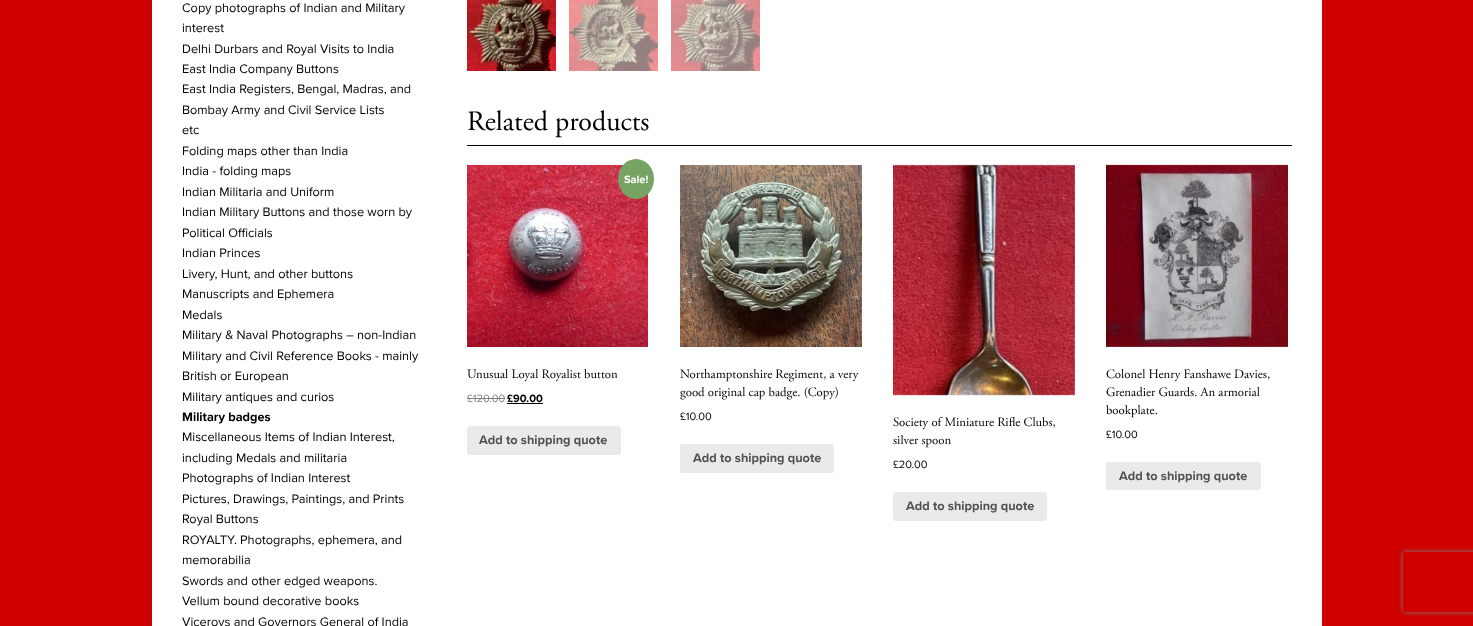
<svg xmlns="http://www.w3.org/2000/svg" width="1473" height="626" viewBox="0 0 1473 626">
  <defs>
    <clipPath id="clip1"><path d="M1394 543H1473V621H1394ZM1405 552H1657C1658 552 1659 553 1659 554V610C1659 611 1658 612 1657 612H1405C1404 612 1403 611 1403 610V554C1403 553 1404 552 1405 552Z" clip-rule="evenodd"/></clipPath>
  </defs>
  <rect width="100%" height="100%" fill="rgb(206,0,0)"/>
  <rect x="152" y="0" width="1170" height="626" fill="rgb(255,255,255)"/>
  <g font-family="Proxima Nova" font-size="12.75" fill="rgb(0,0,0)">
    <text>
      <tspan x="182" y="12">Copy photographs of Indian and Military</tspan>
      <tspan x="182" y="32">interest</tspan>
      <tspan x="182" y="53">Delhi Durbars and Royal Visits to India</tspan>
      <tspan x="182" y="73">East India Company Buttons</tspan>
      <tspan x="182" y="93">East India Registers, Bengal, Madras, and</tspan>
      <tspan x="182" y="114">Bombay Army and Civil Service Lists</tspan>
      <tspan x="182" y="134">etc</tspan>
      <tspan x="182" y="155">Folding maps other than India</tspan>
      <tspan x="182" y="175">India - folding maps</tspan>
      <tspan x="182" y="196">Indian Militaria and Uniform</tspan>
      <tspan x="182" y="216">Indian Military Buttons and those worn by</tspan>
      <tspan x="182" y="237">Political Officials</tspan>
      <tspan x="182" y="257">Indian Princes</tspan>
      <tspan x="182" y="278">Livery, Hunt, and other buttons</tspan>
      <tspan x="182" y="298">Manuscripts and Ephemera</tspan>
      <tspan x="182" y="319">Medals</tspan>
      <tspan x="182" y="339">Military &amp; Naval Photographs – non-Indian</tspan>
      <tspan x="182" y="360">Military and Civil Reference Books - mainly</tspan>
      <tspan x="182" y="380">British or European</tspan>
      <tspan x="182" y="401">Military antiques and curios</tspan>
    </text>
  </g>
  <text x="182" y="421" font-family="Proxima Nova" font-size="12.75" font-weight="bold" fill="rgb(0,0,0)">Military badges</text>
  <g font-family="Proxima Nova" font-size="12.75" fill="rgb(0,0,0)">
    <text>
      <tspan x="182" y="441">Miscellaneous Items of Indian Interest,</tspan>
      <tspan x="182" y="462">including Medals and militaria</tspan>
      <tspan x="182" y="482">Photographs of Indian Interest</tspan>
      <tspan x="182" y="503">Pictures, Drawings, Paintings, and Prints</tspan>
      <tspan x="182" y="523">Royal Buttons</tspan>
      <tspan x="182" y="544">ROYALTY. Photographs, ephemera, and</tspan>
      <tspan x="182" y="564">memorabilia</tspan>
      <tspan x="182" y="585">Swords and other edged weapons.</tspan>
      <tspan x="182" y="605">Vellum bound decorative books</tspan>
      <tspan x="182" y="626">Viceroys and Governors General of India</tspan>
    </text>
  </g>
  <image x="467" y="0" width="89" height="71" href="pic1.png"/>
  <image x="569" y="0" width="89" height="71" href="pic2.png"/>
  <image x="671" y="0" width="89" height="71" href="pic3.png"/>
  <rect x="467" y="145" width="825" height="1" fill="rgb(0,0,0)"/>
  <text x="467" y="130" font-family="Adobe Garamond" font-size="28" fill="rgb(0,0,0)">Related products</text>
  <image x="467" y="165" width="181" height="182" href="pic4.png"/>
  <ellipse cx="636" cy="179" rx="18" ry="20" fill="rgb(119,164,100)"/>
  <text x="624" y="183" font-family="Proxima Nova" font-size="11" font-weight="bold" fill="rgb(255,255,255)">Sale!</text>
  <text x="467" y="378" font-family="Adobe Garamond" font-size="12.75" fill="rgb(0,0,0)">Unusual Loyal Royalist button</text>
  <text x="467" y="402" font-family="Proxima Nova" font-size="11" fill="rgb(128,128,128)">£120.00</text>
  <rect x="467" y="398" width="38" height="1" fill="rgb(128,128,128)"/>
  <text x="507" y="402" font-family="Proxima Nova" font-size="11" font-weight="bold" fill="rgb(0,0,0)">£90.00</text>
  <rect x="507" y="403" width="36" height="1" fill="rgb(0,0,0)"/>
  <rect x="467" y="426" width="154" height="29" rx="3" fill="rgb(235,233,235)"/>
  <text x="479" y="444" font-family="Proxima Nova" font-size="12.75" font-weight="bold" fill="rgb(81,81,81)">Add to shipping quote</text>
  <image x="680" y="165" width="182" height="182" href="pic5.png"/>
  <g font-family="Adobe Garamond" font-size="12.75" fill="rgb(0,0,0)">
    <text>
      <tspan x="680" y="378">Northamptonshire Regiment, a very</tspan>
      <tspan x="680" y="396">good original cap badge. (Copy)</tspan>
    </text>
  </g>
  <text x="680" y="420" font-family="Proxima Nova" font-size="11" fill="rgb(0,0,0)">£10.00</text>
  <rect x="680" y="444" width="154" height="29" rx="3" fill="rgb(235,233,235)"/>
  <text x="693" y="462" font-family="Proxima Nova" font-size="12.75" font-weight="bold" fill="rgb(81,81,81)">Add to shipping quote</text>
  <image x="893" y="164" width="182" height="232" href="pic6.png"/>
  <g font-family="Adobe Garamond" font-size="12.75" fill="rgb(0,0,0)">
    <text>
      <tspan x="893" y="426">Society of Miniature Rifle Clubs,</tspan>
      <tspan x="893" y="444">silver spoon</tspan>
    </text>
  </g>
  <text x="893" y="468" font-family="Proxima Nova" font-size="11" fill="rgb(0,0,0)">£20.00</text>
  <rect x="893" y="492" width="154" height="29" rx="3" fill="rgb(235,233,235)"/>
  <text x="906" y="510" font-family="Proxima Nova" font-size="12.75" font-weight="bold" fill="rgb(81,81,81)">Add to shipping quote</text>
  <image x="1106" y="164" width="182" height="183" href="pic7.png"/>
  <g font-family="Adobe Garamond" font-size="12.75" fill="rgb(0,0,0)">
    <text>
      <tspan x="1106" y="378">Colonel Henry Fanshawe Davies,</tspan>
      <tspan x="1106" y="396">Grenadier Guards. An armorial</tspan>
      <tspan x="1106" y="414">bookplate.</tspan>
    </text>
  </g>
  <text x="1106" y="438" font-family="Proxima Nova" font-size="11" fill="rgb(0,0,0)">£10.00</text>
  <rect x="1106" y="462" width="155" height="28" rx="3" fill="rgb(235,233,235)"/>
  <text x="1119" y="480" font-family="Proxima Nova" font-size="12.75" font-weight="bold" fill="rgb(81,81,81)">Add to shipping quote</text>
  <g clip-path="url(#clip1)">
    <rect x="1403" y="552" width="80" height="60" rx="2" fill="rgb(128,128,128)" filter="blur(2.5px)"/>
  </g>
</svg>
